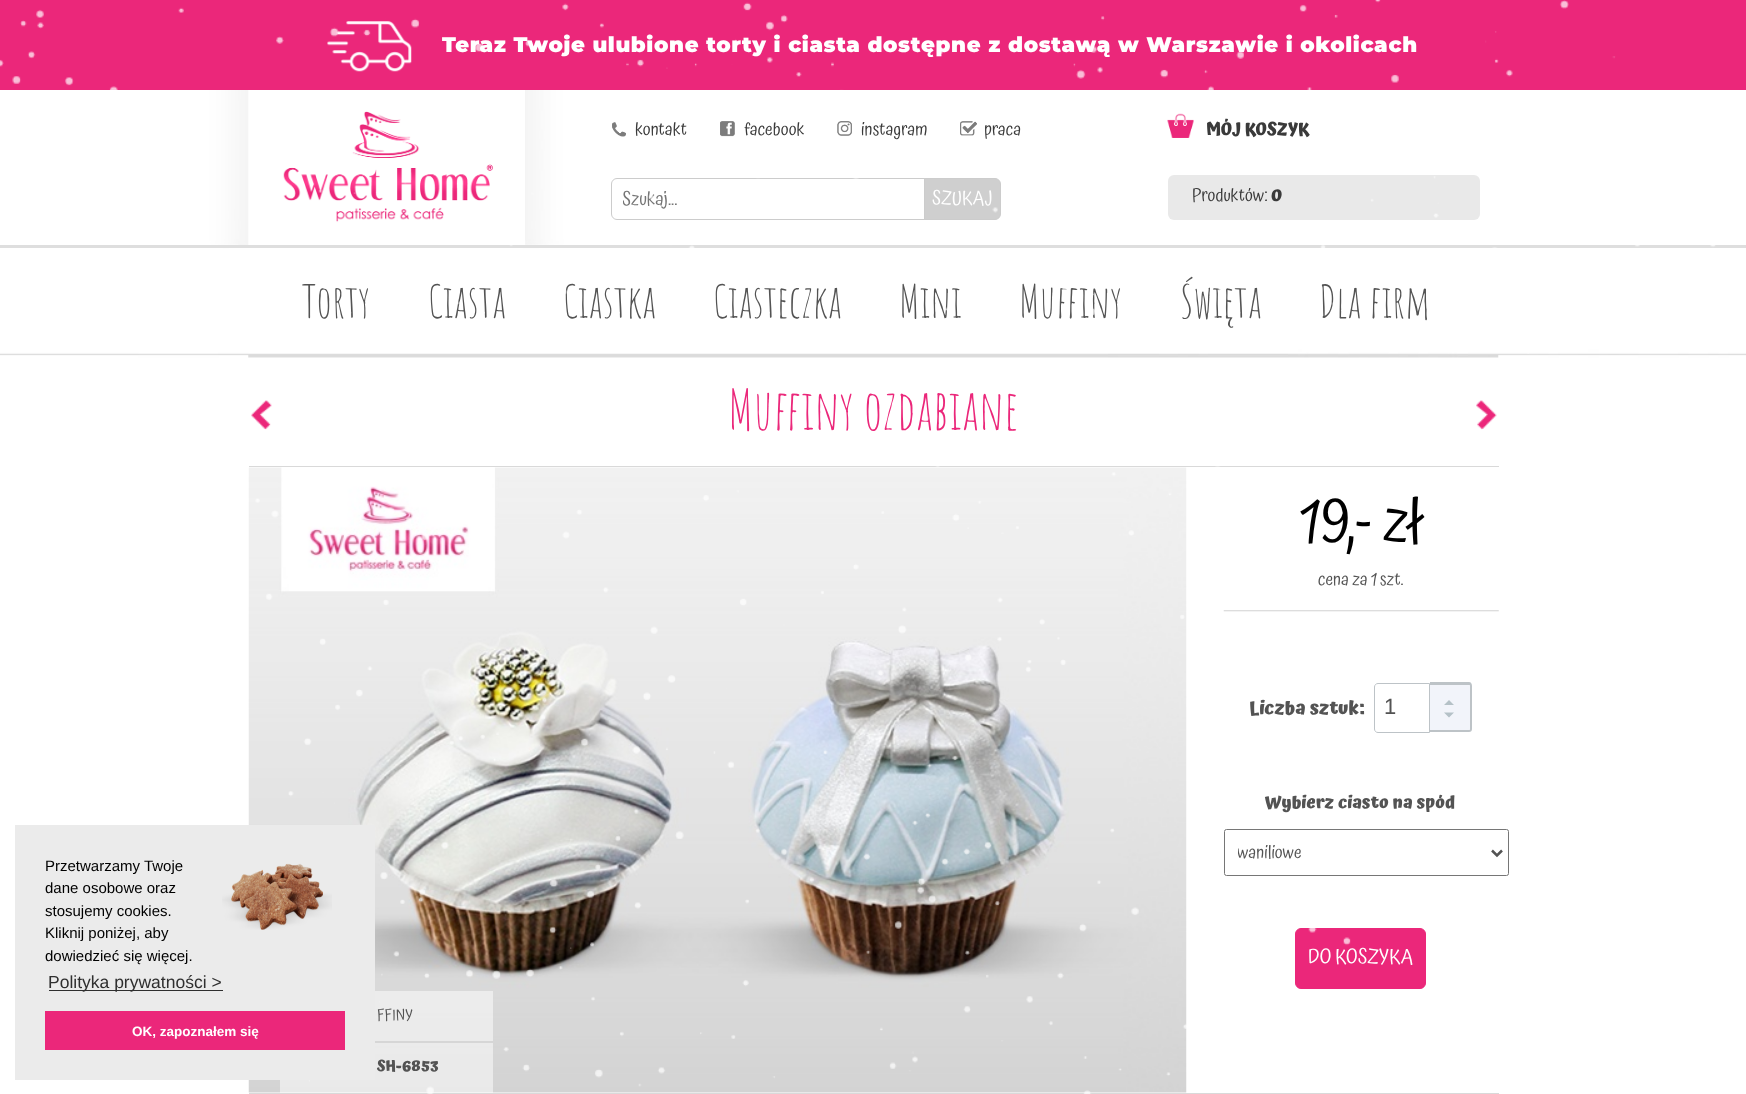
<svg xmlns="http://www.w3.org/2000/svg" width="1746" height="1094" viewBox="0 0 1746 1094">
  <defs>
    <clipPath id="clip1"><rect x="623" y="184" width="302" height="31"/></clipPath>
    <clipPath id="clip2"><rect x="1238" y="838" width="242" height="30"/></clipPath>
  </defs>
  <rect width="100%" height="100%" fill="rgb(255,255,255)"/>
  <image x="0" y="90" width="1746" height="268" href="pic1.png"/>
  <rect x="0" y="0" width="1746" height="90" fill="rgb(235,39,122)"/>
  <image x="327" y="21" width="85" height="51" href="pic3.png"/>
  <text x="442" y="52" font-family="Montserrat" font-size="21.25" font-weight="100" letter-spacing="0.62" fill="rgb(255,255,255)">Teraz Twoje ulubione torty i ciasta dostępne z dostawą w Warszawie i okolicach</text>
  <image x="283" y="90" width="242" height="155" href="pic5.png"/>
  <image x="612" y="122" width="14" height="15" href="pic6.png"/>
  <text x="635" y="135" font-family="Atma" font-size="17.5" fill="rgb(58,58,58)">kontakt</text>
  <image x="720" y="121" width="15" height="16" href="pic7.png"/>
  <text x="744" y="135" font-family="Atma" font-size="17.5" fill="rgb(58,58,58)">facebook</text>
  <image x="837" y="121" width="15" height="15" href="pic8.png"/>
  <text x="861" y="135" font-family="Atma" font-size="17.5" fill="rgb(58,58,58)">instagram</text>
  <image x="960" y="121" width="17" height="15" href="pic9.png"/>
  <text x="984" y="135" font-family="Atma" font-size="17.5" fill="rgb(58,58,58)">praca</text>
  <rect x="611.5" y="178.5" width="324" height="41" rx="5.5" fill="none" stroke="rgb(204,204,204)"/>
  <g clip-path="url(#clip1)">
    <text x="622" y="205" font-family="Atma" font-size="18.75" fill="rgb(117,117,117)">Szukaj...</text>
  </g>
  <path d="M924.5 178.5H995C998 178.5 1000.5 181 1000.5 184V214C1000.5 217 998 219.5 995 219.5H924.5Z" fill="rgb(207,207,207)" stroke="rgb(204,204,204)"/>
  <text x="932" y="204" font-family="Atma" font-size="18.75" fill="rgb(255,255,255)">SZUKAJ</text>
  <image x="1167" y="113" width="27" height="25" href="pic10.png"/>
  <text x="1206" y="135" font-family="Atma" font-size="17.5" font-weight="bold" fill="rgb(58,58,58)">MÓJ KOSZYK</text>
  <rect x="1168" y="175" width="312" height="45" rx="6" fill="rgb(233,233,233)"/>
  <text x="1192" y="201" font-family="Atma" font-size="17.5" fill="rgb(58,58,58)">Produktów:</text>
  <text x="1271" y="201" font-family="Atma" font-size="17.5" font-weight="bold" fill="rgb(58,58,58)">0</text>
  <rect x="0" y="245" width="1746" height="3" fill="rgb(222,222,222)"/>
  <g font-family="Amatic SC" font-size="45" fill="rgb(83,83,83)">
    <text x="302" y="318">Torty</text>
    <text x="428" y="318">Ciasta</text>
    <text x="563" y="318">Ciastka</text>
    <text x="713" y="318">Ciasteczka</text>
    <text x="899" y="318">Mini</text>
    <text x="1019" y="318">Muffiny</text>
    <text x="1180" y="318">Święta</text>
    <text x="1319" y="318">Dla firm</text>
  </g>
  <image x="251" y="400" width="21" height="30" href="pic11.png"/>
  <text x="728" y="430" font-family="Amatic SC" font-size="55" fill="rgb(235,39,122)">Muffiny ozdabiane</text>
  <image x="1476" y="400" width="21" height="30" href="pic12.png"/>
  <rect x="249" y="466" width="1250" height="1" fill="rgb(217,217,217)"/>
  <text x="1299" y="541" font-family="Atma" font-size="60" fill="rgb(0,0,0)">19,- zł</text>
  <text x="1318" y="585" font-family="Atma" font-size="17.5" fill="rgb(83,83,83)">cena za 1 szt.</text>
  <image x="1223" y="610" width="276" height="2" href="pic13.png"/>
  <text x="1249" y="714" font-family="Atma" font-size="18.75" font-weight="bold" fill="rgb(83,83,83)">Liczba sztuk:</text>
  <path d="M1378 683.5H1429.5V732.5H1378C1376 732.5 1374.5 731 1374.5 729V687C1374.5 685 1376 683.5 1378 683.5Z" fill="none" stroke="rgb(189,195,199)"/>
  <text x="1384" y="714" font-family="Liberation Sans" font-size="22" fill="rgb(83,83,83)">1</text>
  <path d="M1430 682H1469C1471 682 1472 684 1472 686V729C1472 731 1471 732 1469 732H1430ZM1430 685H1469C1469 685 1470 686 1470 686V729C1470 729 1469 730 1469 730H1430Z" fill="rgb(189,195,199)" fill-rule="evenodd"/>
  <path d="M1430 685H1469C1469.5 685 1470 685.5 1470 686V708H1430Z" fill="rgb(242,244,250)"/>
  <path d="M1430 708H1470V729C1470 729.5 1469.5 730 1469 730H1430Z" fill="rgb(242,244,250)"/>
  <path d="M1454 705H1444L1449 700ZM1444 712.5H1454L1449 717.5Z" fill="rgb(181,193,199)"/>
  <text x="1265" y="808" font-family="Atma" font-size="17.5" font-weight="bold" fill="rgb(83,83,83)">Wybierz ciasto na spód</text>
  <rect x="1224.5" y="829.5" width="284" height="46" rx="2" fill="none" stroke="rgb(118,118,118)"/>
  <path d="M1492 850.5L1497 855.5L1502 850.5" fill="none" stroke="rgb(83,83,83)" stroke-width="2.5"/>
  <g clip-path="url(#clip2)">
    <text x="1237" y="858" font-family="Atma" font-size="17.5" fill="rgb(83,83,83)">waniliowe</text>
  </g>
  <rect x="1295.5" y="928.5" width="130" height="60" rx="5.5" fill="rgb(235,39,122)" stroke="rgb(235,39,122)"/>
  <text x="1308" y="963" font-family="Atma" font-size="20" fill="rgb(255,255,255)">DO KOSZYKA</text>
  <image x="248" y="467" width="939" height="626" href="pic14.png"/>
  <rect x="375" y="991" width="118" height="50" fill="rgba(255,255,255,0.5)"/>
  <text x="377" y="1020" font-family="Atma" font-size="15" fill="rgb(83,83,83)">FFINY</text>
  <rect x="280" y="1043" width="213" height="50" fill="rgba(255,255,255,0.5)"/>
  <text x="377" y="1071" font-family="Atma" font-size="15" font-weight="bold" fill="rgb(83,83,83)">SH-6853</text>
  <rect x="249" y="1093" width="1250" height="1" fill="rgb(217,217,217)"/>
  <image x="0" y="0" width="1716" height="1094" href="pic2.png"/>
  <rect x="15" y="825" width="360" height="255" fill="rgb(235,235,235)"/>
  <text x="45" y="871" font-family="Liberation Sans" font-size="15" fill="rgb(0,0,0)">Przetwarzamy Twoje</text>
  <image x="222" y="863" width="110" height="67" href="pic4.png"/>
  <g font-family="Liberation Sans" font-size="15" fill="rgb(0,0,0)">
    <text>
      <tspan x="45" y="893">dane osobowe oraz</tspan>
      <tspan x="45" y="916">stosujemy cookies.</tspan>
      <tspan x="45" y="938">Kliknij poniżej, aby</tspan>
      <tspan x="45" y="961">dowiedzieć się więcej.</tspan>
    </text>
  </g>
  <rect x="49" y="990" width="174" height="1" fill="rgb(47,47,47)"/>
  <text x="48" y="988" font-family="Liberation Sans" font-size="17.5" fill="rgb(47,47,47)">Polityka prywatności &gt;</text>
  <rect x="45" y="1011" width="300" height="39" fill="rgb(235,39,122)"/>
  <text x="132" y="1036" font-family="Liberation Sans" font-size="13.5" font-weight="bold" fill="rgb(255,255,255)">OK, zapoznałem się</text>
</svg>
